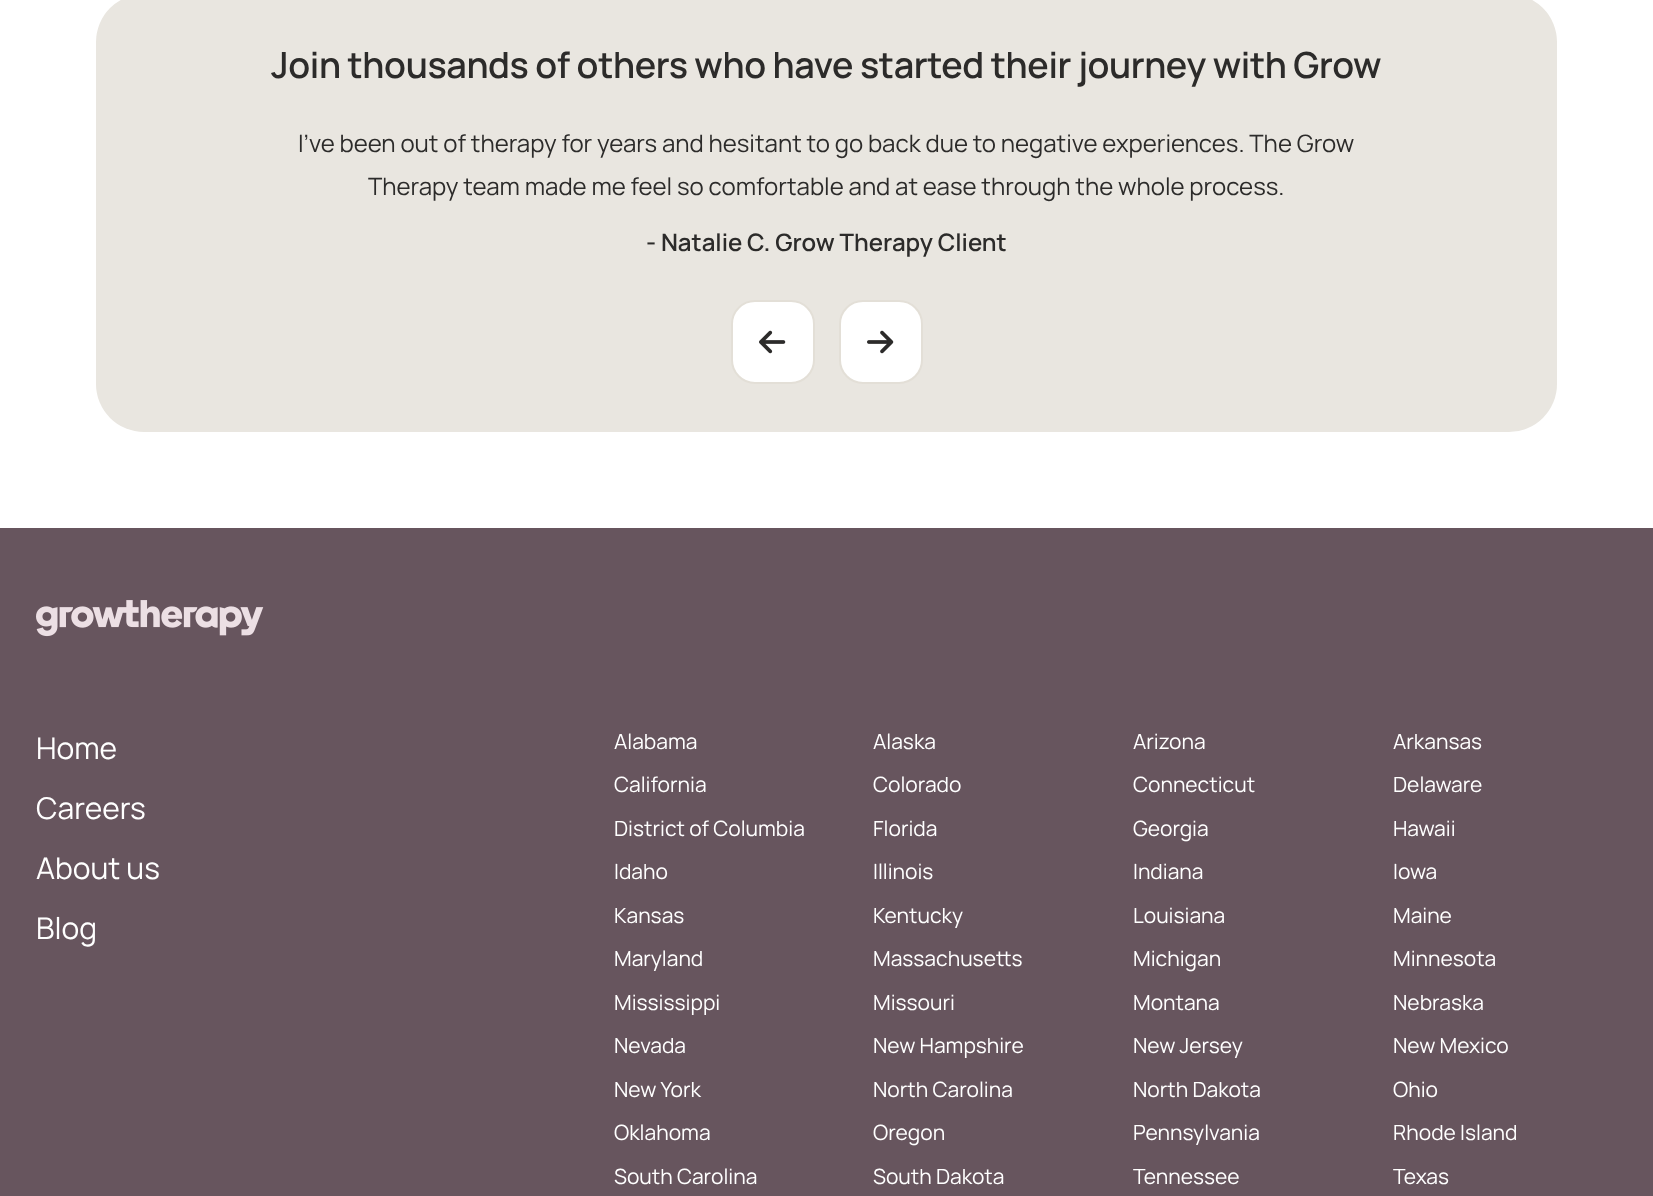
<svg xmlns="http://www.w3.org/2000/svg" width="1653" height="1196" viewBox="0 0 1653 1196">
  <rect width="100%" height="100%" fill="rgb(255,255,255)"/>
  <rect x="96" y="-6" width="1461" height="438" rx="48" fill="rgb(233,230,224)"/>
  <text x="271" y="78" font-family="Manrope" font-size="36" font-weight="600" letter-spacing="-0.38" fill="rgb(44,43,42)">Join thousands of others who have started their journey with Grow</text>
  <g font-family="Manrope" font-size="24" fill="rgb(44,43,42)">
    <text x="298" y="152">I've been out of therapy for years and hesitant to go back due to negative experiences. The Grow</text>
    <text x="368" y="195">Therapy team made me feel so comfortable and at ease through the whole process.</text>
  </g>
  <text x="646" y="251" font-family="Manrope" font-size="24" font-weight="600" fill="rgb(44,43,42)">- Natalie C. Grow Therapy Client</text>
  <rect x="732" y="301" width="82" height="82" rx="23" fill="rgb(255,255,255)" stroke="rgb(227,223,215)" stroke-width="2"/>
  <image x="759" y="330" width="27" height="24" href="pic1.png"/>
  <rect x="840" y="301" width="82" height="82" rx="23" fill="rgb(255,255,255)" stroke="rgb(227,223,215)" stroke-width="2"/>
  <image x="867" y="330" width="27" height="24" href="pic2.png"/>
  <rect x="0" y="528" width="1653" height="668" fill="rgb(103,85,94)"/>
  <image x="36" y="600" width="228" height="37" href="pic3.png"/>
  <g font-family="Manrope" font-size="30" fill="rgb(255,255,255)">
    <text x="36" y="759">Home</text>
    <text x="36" y="819">Careers</text>
    <text x="36" y="879">About us</text>
    <text x="36" y="939">Blog</text>
  </g>
  <g font-family="Manrope" font-size="21" fill="rgb(255,255,255)">
    <text x="614" y="749">Alabama</text>
    <text x="873" y="749">Alaska</text>
    <text x="1133" y="749">Arizona</text>
    <text x="1393" y="749">Arkansas</text>
    <text x="614" y="792">California</text>
    <text x="873" y="792">Colorado</text>
    <text x="1133" y="792">Connecticut</text>
    <text x="1393" y="792">Delaware</text>
    <text x="614" y="836">District of Columbia</text>
    <text x="873" y="836">Florida</text>
    <text x="1133" y="836">Georgia</text>
    <text x="1393" y="836">Hawaii</text>
    <text x="614" y="879">Idaho</text>
    <text x="873" y="879">Illinois</text>
    <text x="1133" y="879">Indiana</text>
    <text x="1393" y="879">Iowa</text>
    <text x="614" y="923">Kansas</text>
    <text x="873" y="923">Kentucky</text>
    <text x="1133" y="923">Louisiana</text>
    <text x="1393" y="923">Maine</text>
    <text x="614" y="966">Maryland</text>
    <text x="873" y="966">Massachusetts</text>
    <text x="1133" y="966">Michigan</text>
    <text x="1393" y="966">Minnesota</text>
    <text x="614" y="1010">Mississippi</text>
    <text x="873" y="1010">Missouri</text>
    <text x="1133" y="1010">Montana</text>
    <text x="1393" y="1010">Nebraska</text>
    <text x="614" y="1053">Nevada</text>
    <text x="873" y="1053">New Hampshire</text>
    <text x="1133" y="1053">New Jersey</text>
    <text x="1393" y="1053">New Mexico</text>
    <text x="614" y="1097">New York</text>
    <text x="873" y="1097">North Carolina</text>
    <text x="1133" y="1097">North Dakota</text>
    <text x="1393" y="1097">Ohio</text>
    <text x="614" y="1140">Oklahoma</text>
    <text x="873" y="1140">Oregon</text>
    <text x="1133" y="1140">Pennsylvania</text>
    <text x="1393" y="1140">Rhode Island</text>
    <text x="614" y="1184">South Carolina</text>
    <text x="873" y="1184">South Dakota</text>
    <text x="1133" y="1184">Tennessee</text>
    <text x="1393" y="1184">Texas</text>
  </g>
</svg>
